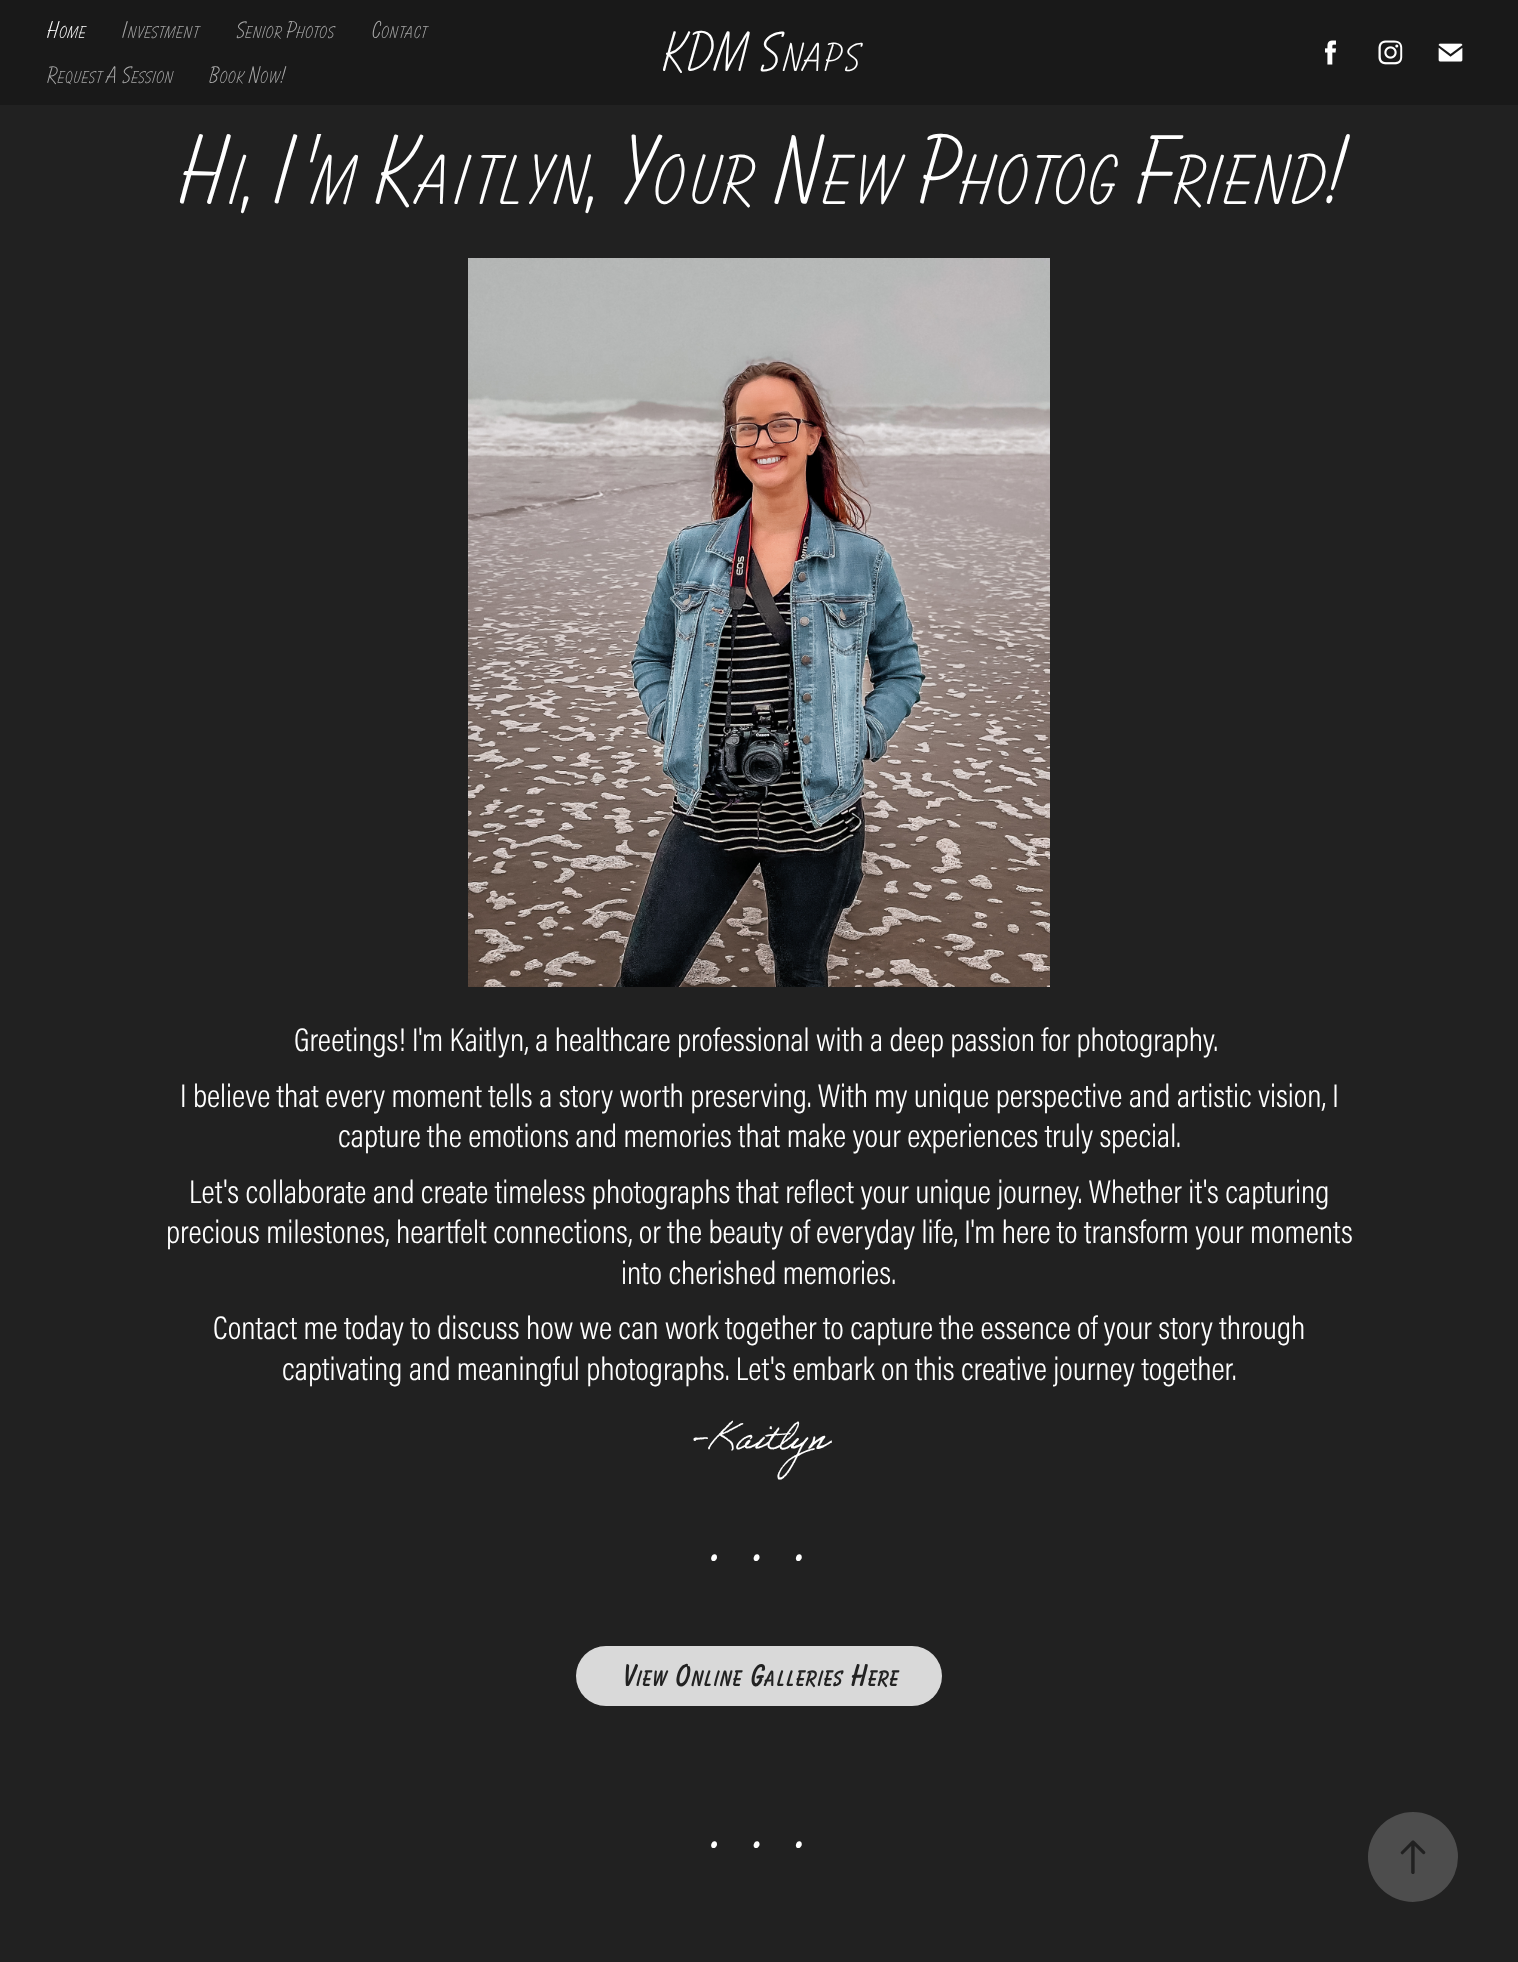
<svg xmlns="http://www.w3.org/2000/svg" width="1518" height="1962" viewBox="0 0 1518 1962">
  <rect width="100%" height="100%" fill="rgb(33,33,33)"/>
  <rect x="0" y="0" width="1518" height="105" fill="rgb(25,25,25)"/>
  <text x="46" y="38" font-family="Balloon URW" font-size="25.5" font-weight="300" fill="rgb(255,255,255)">Home</text>
  <g font-family="Balloon URW" font-size="25.5" font-weight="300" fill="rgb(169,169,169)">
    <text x="121" y="38">Investment</text>
    <text x="235" y="38">Senior Photos</text>
    <text x="371" y="38">Contact</text>
    <text x="46" y="83">Request A Session</text>
    <text x="208" y="83">Book Now!</text>
  </g>
  <text x="660" y="71" font-family="Balloon URW" font-size="60" font-weight="300" fill="rgb(255,255,255)">KDM Snaps</text>
  <image x="1325" y="40" width="11" height="25" href="pic1.png"/>
  <image x="1378" y="40" width="25" height="25" href="pic2.png"/>
  <image x="1438" y="43" width="25" height="19" href="pic3.png"/>
  <text x="175" y="204" font-family="Balloon URW" font-size="105" font-weight="300" fill="rgb(255,255,255)">Hi, I'm Kaitlyn, Your New Photog Friend!</text>
  <image x="468" y="258" width="582" height="729" href="pic4.png"/>
  <g font-family="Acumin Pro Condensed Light" font-size="33" font-weight="300" fill="rgb(255,255,255)">
    <text x="294" y="1051">Greetings! I'm Kaitlyn, a healthcare professional with a deep passion for photography.</text>
    <text x="180" y="1107">I believe that every moment tells a story worth preserving. With my unique perspective and artistic vision, I</text>
    <text x="338" y="1147">capture the emotions and memories that make your experiences truly special.</text>
    <text x="189" y="1203">Let's collaborate and create timeless photographs that reflect your unique journey. Whether it's capturing</text>
    <text x="166" y="1243">precious milestones, heartfelt connections, or the beauty of everyday life, I'm here to transform your moments</text>
    <text x="621" y="1284">into cherished memories.</text>
    <text x="213" y="1339">Contact me today to discuss how we can work together to capture the essence of your story through</text>
    <text x="282" y="1380">captivating and meaningful photographs. Let's embark on this creative journey together.</text>
  </g>
  <text x="690" y="1449" font-family="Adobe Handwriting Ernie" font-size="36" fill="rgb(255,255,255)">-Kaitlyn</text>
  <text x="712" y="1561" font-family="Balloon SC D" font-size="45" font-weight="800" fill="rgb(255,255,255)" xml:space="preserve">.   .   .</text>
  <rect x="576" y="1646" width="366" height="60" rx="30" fill="rgb(217,217,217)"/>
  <text x="621" y="1686" font-family="Balloon URW" font-size="33" font-weight="bold" fill="rgb(34,34,34)">View Online Galleries Here</text>
  <text x="712" y="1848" font-family="Balloon SC D" font-size="45" font-weight="800" fill="rgb(255,255,255)" xml:space="preserve">.   .   .</text>
  <circle cx="1413" cy="1857" r="45" fill="rgb(77,77,77)"/>
  <image x="1400" y="1840" width="26" height="34" href="pic5.png"/>
</svg>
